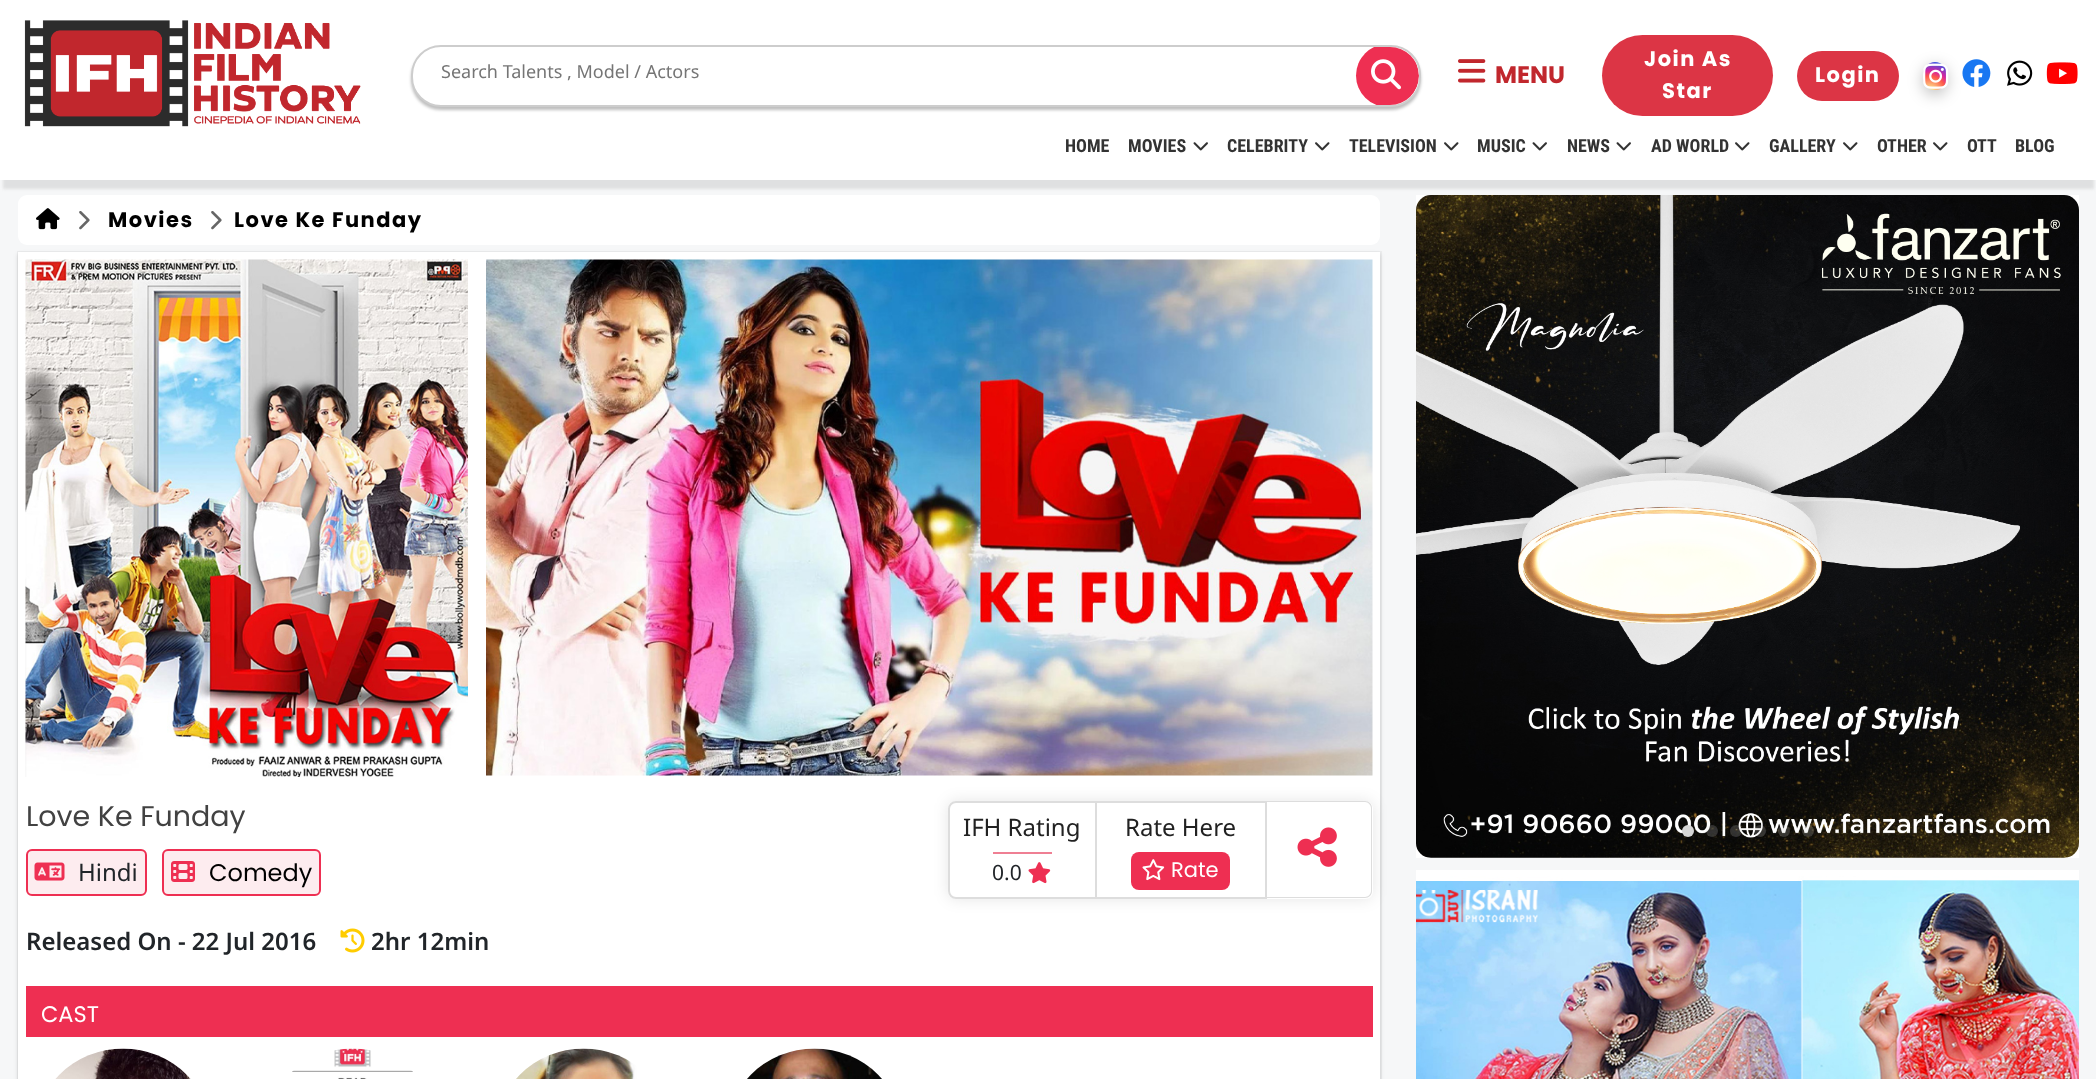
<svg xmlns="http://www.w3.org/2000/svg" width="2096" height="1079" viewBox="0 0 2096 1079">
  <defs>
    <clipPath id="clip1"><rect x="413" y="47" width="1006" height="58" rx="29"/></clipPath>
    <radialGradient id="g1" gradientUnits="userSpaceOnUse" cx="1930" cy="92" r="35"><stop offset="0" stop-color="rgb(253,244,151)"/><stop offset="0.05" stop-color="rgb(253,244,151)"/><stop offset="0.45" stop-color="rgb(253,89,73)"/><stop offset="0.6" stop-color="rgb(214,36,159)"/><stop offset="0.9" stop-color="rgb(40,90,235)"/></radialGradient>
    <clipPath id="clip2"><path d="M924 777H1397V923H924ZM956 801H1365C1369.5 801 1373 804.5 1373 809V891C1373 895.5 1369.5 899 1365 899H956C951.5 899 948 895.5 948 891V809C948 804.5 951.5 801 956 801Z" clip-rule="evenodd"/></clipPath>
  </defs>
  <rect width="100%" height="100%" fill="rgb(246,247,248)"/>
  <rect x="3" y="15" width="2091" height="174" fill="rgba(128,128,128,0.19)" filter="blur(1.5px)"/>
  <rect x="0" y="0" width="2096" height="180" fill="rgb(255,255,255)"/>
  <image x="24" y="20" width="337" height="107" href="pic1.png"/>
  <rect x="411" y="48" width="1010" height="62" rx="30" fill="rgba(0,0,0,0.25)" filter="blur(1.5px)"/>
  <rect x="412" y="46" width="1008" height="60" rx="29" fill="rgb(255,255,255)" stroke="rgb(205,205,205)" stroke-width="2"/>
  <text x="441" y="78" font-family="Noto Sans" font-size="18" fill="rgb(117,117,117)">Search Talents , Model / Actors</text>
  <g clip-path="url(#clip1)">
    <circle cx="1387.5" cy="75.5" r="31.5" fill="rgb(238,47,82)"/>
  </g>
  <image x="1371" y="59" width="30" height="31" href="pic2.png"/>
  <image x="1458" y="59" width="28" height="24" href="pic3.png"/>
  <text x="1495" y="83" font-family="Poppins" font-size="24" font-weight="bold" fill="rgb(193,39,45)">MENU</text>
  <rect x="1602" y="35" width="171" height="81" rx="40.5" fill="rgb(220,53,69)"/>
  <g font-family="Poppins" font-size="21" font-weight="bold" letter-spacing="1.5" fill="rgb(255,255,255)">
    <text x="1644" y="66">Join As</text>
    <text x="1662" y="98">Star</text>
  </g>
  <rect x="1797" y="51" width="102" height="50" rx="25" fill="rgb(220,53,69)"/>
  <text x="1815" y="82" font-family="Poppins" font-size="21" font-weight="bold" letter-spacing="1.5" fill="rgb(255,255,255)">Login</text>
  <rect x="1923" y="66" width="24" height="29" rx="12" fill="rgba(0,0,0,0.25)" filter="blur(7.5px)"/>
  <rect x="1923" y="62" width="24" height="28" rx="12" fill="url(#g1)"/>
  <image x="1923" y="63" width="26" height="26" href="pic4.png"/>
  <image x="1962" y="59" width="29" height="28" href="pic5.png"/>
  <image x="2007" y="60" width="26" height="26" href="pic6.png"/>
  <image x="2046" y="62" width="32" height="22" href="pic7.png"/>
  <g font-family="Roboto Condensed" font-size="18" font-weight="bold" fill="rgb(51,51,51)">
    <text x="1065" y="152">HOME</text>
    <text x="1128" y="152">MOVIES</text>
  </g>
  <image x="1193" y="142" width="15" height="9" href="pic8.png"/>
  <text x="1227" y="152" font-family="Roboto Condensed" font-size="18" font-weight="bold" fill="rgb(51,51,51)">CELEBRITY</text>
  <image x="1315" y="142" width="15" height="9" href="pic9.png"/>
  <text x="1349" y="152" font-family="Roboto Condensed" font-size="18" font-weight="bold" fill="rgb(51,51,51)">TELEVISION</text>
  <image x="1444" y="142" width="15" height="9" href="pic9.png"/>
  <text x="1477" y="152" font-family="Roboto Condensed" font-size="18" font-weight="bold" fill="rgb(51,51,51)">MUSIC</text>
  <image x="1532" y="142" width="15" height="9" href="pic8.png"/>
  <text x="1567" y="152" font-family="Roboto Condensed" font-size="18" font-weight="bold" fill="rgb(51,51,51)">NEWS</text>
  <image x="1616" y="142" width="15" height="9" href="pic8.png"/>
  <text x="1651" y="152" font-family="Roboto Condensed" font-size="18" font-weight="bold" fill="rgb(51,51,51)">AD WORLD</text>
  <image x="1735" y="142" width="15" height="9" href="pic9.png"/>
  <text x="1769" y="152" font-family="Roboto Condensed" font-size="18" font-weight="bold" fill="rgb(51,51,51)">GALLERY</text>
  <image x="1843" y="142" width="15" height="9" href="pic9.png"/>
  <text x="1877" y="152" font-family="Roboto Condensed" font-size="18" font-weight="bold" fill="rgb(51,51,51)">OTHER</text>
  <image x="1933" y="142" width="15" height="9" href="pic9.png"/>
  <g font-family="Roboto Condensed" font-size="18" font-weight="bold" fill="rgb(51,51,51)">
    <text x="1967" y="152">OTT</text>
    <text x="2015" y="152">BLOG</text>
  </g>
  <rect x="18" y="195" width="1362" height="50" rx="9" fill="rgb(255,255,255)"/>
  <image x="36" y="208" width="24" height="22" href="pic10.png"/>
  <image x="79" y="211" width="11" height="19" href="pic11.png"/>
  <text x="108" y="227" font-family="Poppins" font-size="21" font-weight="bold" letter-spacing="1.5" fill="rgb(0,0,0)">Movies</text>
  <image x="211" y="211" width="11" height="19" href="pic11.png"/>
  <text x="234" y="227" font-family="Poppins" font-size="21" font-weight="bold" letter-spacing="1.5" fill="rgb(0,0,0)">Love Ke Funday</text>
  <rect x="18" y="252" width="1363" height="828" fill="none" stroke="rgb(236,237,238)" stroke-width="2"/>
  <rect x="18" y="254" width="1362" height="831" fill="rgba(0,0,0,0.16)" filter="blur(2px)"/>
  <rect x="18" y="252" width="1362" height="827" fill="rgb(255,255,255)"/>
  <image x="25" y="259" width="443" height="518" href="pic12.png"/>
  <image x="486" y="259" width="887" height="517" href="pic13.png"/>
  <text x="26" y="826" font-family="Poppins" font-size="28.5" fill="rgb(66,66,66)">Love Ke Funday</text>
  <rect x="27" y="850" width="119" height="45" rx="5" fill="rgb(253,236,239)" stroke="rgb(238,47,82)" stroke-width="2"/>
  <image x="34" y="862" width="31" height="19" href="pic14.png"/>
  <text x="78" y="881" font-family="Noto Sans" font-size="24" fill="rgb(33,37,41)">Hindi</text>
  <rect x="163" y="850" width="157" height="45" rx="5" fill="rgb(253,236,239)" stroke="rgb(238,47,82)" stroke-width="2"/>
  <image x="171" y="861" width="24" height="21" href="pic15.png"/>
  <text x="209" y="881" font-family="Poppins" font-size="24" fill="rgb(0,0,0)">Comedy</text>
  <text x="26" y="950" font-family="Noto Sans" font-size="24" font-weight="600" fill="rgb(33,37,41)">Released On - 22 Jul 2016</text>
  <image x="340" y="928" width="25" height="25" href="pic16.png"/>
  <text x="371" y="950" font-family="Noto Sans" font-size="24" font-weight="600" fill="rgb(33,37,41)">2hr 12min</text>
  <g clip-path="url(#clip2)">
    <rect x="948" y="801" width="425" height="98" rx="8" fill="rgba(0,0,0,0.1)" filter="blur(7.5px)"/>
  </g>
  <path d="M956 802H1096V898H956C952 898 949 895 949 891V809C949 805 952 802 956 802Z" fill="none" stroke="rgb(221,221,221)" stroke-width="2"/>
  <text x="963" y="836" font-family="Noto Sans" font-size="24" fill="rgb(34,34,34)">IFH Rating</text>
  <rect x="993" y="852" width="59" height="2" fill="rgb(239,127,147)"/>
  <text x="992" y="880" font-family="Noto Sans" font-size="21" fill="rgb(33,37,41)">0.0</text>
  <image x="1028" y="862" width="23" height="22" href="pic17.png"/>
  <rect x="1097" y="801" width="169" height="2" fill="rgb(221,221,221)"/>
  <rect x="1265" y="801" width="2" height="98" fill="rgb(221,221,221)"/>
  <rect x="1097" y="897" width="169" height="2" fill="rgb(221,221,221)"/>
  <text x="1125" y="836" font-family="Noto Sans" font-size="24" fill="rgb(34,34,34)">Rate Here</text>
  <rect x="1131" y="852" width="99" height="38" rx="8" fill="rgb(238,47,82)"/>
  <image x="1142" y="859" width="23" height="22" href="pic18.png"/>
  <text x="1171" y="877" font-family="Poppins" font-size="21" fill="rgb(255,255,255)">Rate</text>
  <path d="M1266 801H1365C1369 801 1372 804 1372 808V891C1372 895 1369 898 1365 898H1266ZM1266 802H1365C1368 802 1371 805 1371 808V891C1371 894 1368 897 1365 897H1266Z" fill="rgb(221,221,221)" fill-rule="evenodd"/>
  <image x="1297" y="827" width="40" height="40" href="pic19.png"/>
  <rect x="26" y="986" width="1347" height="51" fill="rgb(238,47,82)"/>
  <text x="41" y="1022" font-family="Poppins" font-size="22.5" fill="rgb(255,255,255)">CAST</text>
  <image x="55" y="1048" width="136" height="31" href="pic20.png"/>
  <image x="292" y="1048" width="121" height="31" href="pic21.png"/>
  <image x="516" y="1048" width="121" height="31" href="pic22.png"/>
  <image x="747" y="1048" width="135" height="31" href="pic23.png"/>
  <rect x="1416" y="195" width="663" height="663" fill="rgb(255,255,255)"/>
  <image x="1416" y="195" width="663" height="663" href="pic24.png"/>
  <circle cx="1688" cy="831" r="6" fill="rgb(214,214,214)"/>
  <circle cx="1712" cy="831" r="6" fill="rgba(214,214,214,0.2)"/>
  <circle cx="1736" cy="831" r="6" fill="rgba(214,214,214,0.2)"/>
  <circle cx="1760" cy="831" r="6" fill="rgba(214,214,214,0.2)"/>
  <circle cx="1784" cy="831" r="6" fill="rgba(214,214,214,0.2)"/>
  <circle cx="1808" cy="831" r="6" fill="rgba(214,214,214,0.2)"/>
  <image x="1416" y="870" width="663" height="209" href="pic25.png"/>
</svg>
